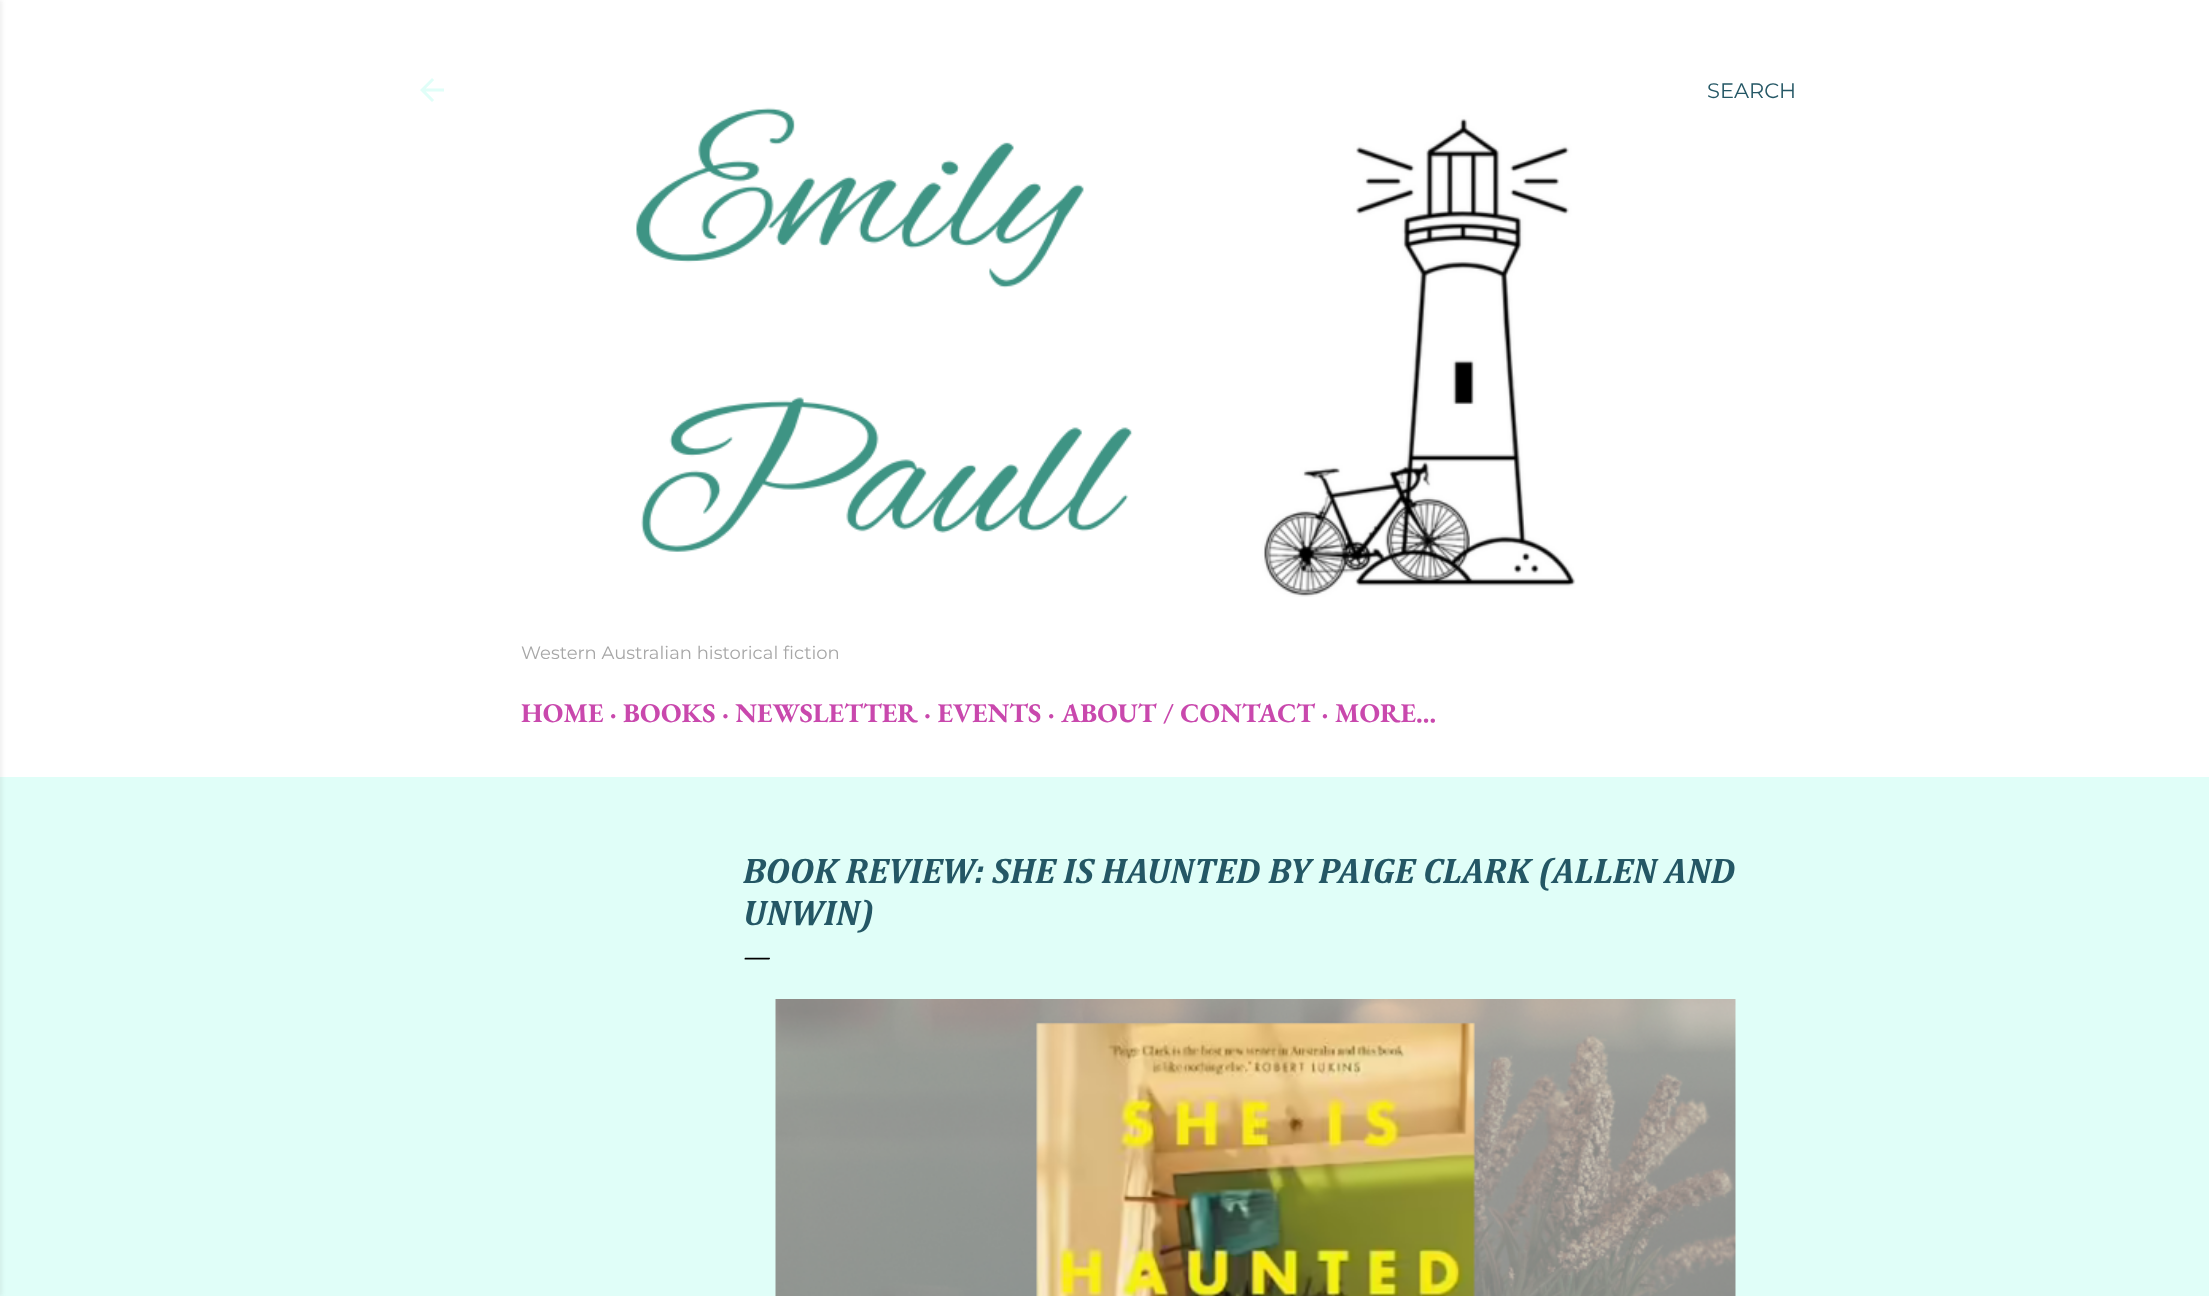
<svg xmlns="http://www.w3.org/2000/svg" width="2209" height="1296" viewBox="0 0 2209 1296">
  <rect width="100%" height="100%" fill="rgb(224,254,248)"/>
  <rect x="0" y="0" width="2209" height="777" fill="rgb(255,255,255)"/>
  <rect x="-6" y="0" width="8" height="1296" fill="rgba(92,92,92,0.1)" filter="blur(2px)"/>
  <image x="420" y="78" width="24" height="24" href="pic1.png"/>
  <text x="1707" y="98" font-family="Montserrat" font-size="21" fill="rgb(36,87,101)">SEARCH</text>
  <image x="636" y="107" width="940" height="490" href="pic2.png"/>
  <text x="521" y="659" font-family="Montserrat" font-size="18" fill="rgb(167,167,167)">Western Australian historical fiction</text>
  <text x="521" y="722" font-family="EB Garamond" font-size="27" font-weight="bold" fill="rgb(201,72,173)">HOME · BOOKS · NEWSLETTER · EVENTS · ABOUT / CONTACT · MORE…</text>
  <g font-family="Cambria" font-size="36" font-weight="bold" font-style="italic" fill="rgb(36,87,101)">
    <text>
      <tspan x="743" y="883">BOOK REVIEW: SHE IS HAUNTED BY PAIGE CLARK (ALLEN AND</tspan>
      <tspan x="743" y="925">UNWIN)</tspan>
    </text>
  </g>
  <text x="743" y="965" font-family="EB Garamond" font-size="30" fill="rgb(0,0,0)">—</text>
  <image x="775" y="999" width="961" height="297" href="pic3.png"/>
</svg>
